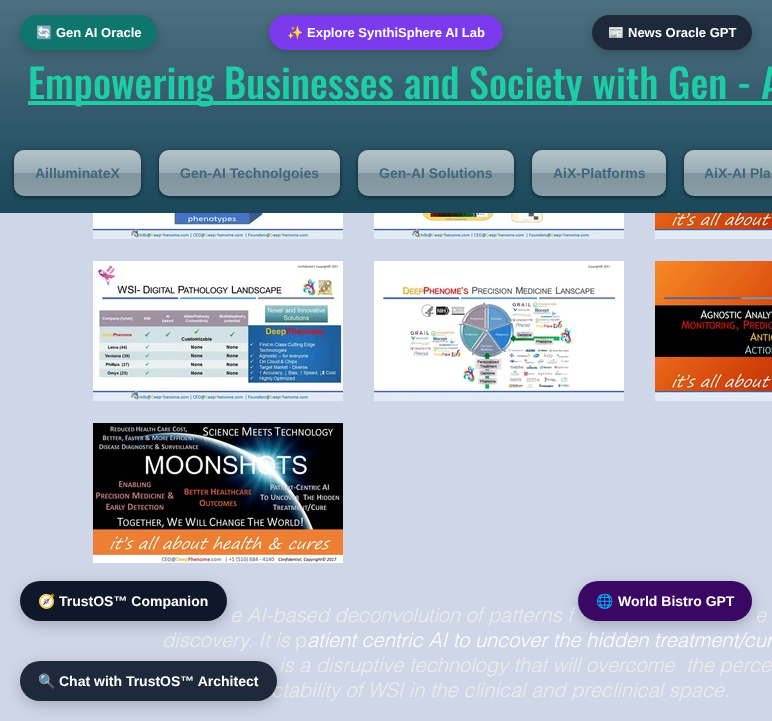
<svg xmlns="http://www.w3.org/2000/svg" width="772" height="721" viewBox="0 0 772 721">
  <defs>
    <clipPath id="clip1"><path d="M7 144H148V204H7ZM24 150H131C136.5 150 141 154.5 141 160V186C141 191.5 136.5 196 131 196H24C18.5 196 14 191.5 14 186V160C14 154.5 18.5 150 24 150Z" clip-rule="evenodd"/></clipPath>
    <clipPath id="clip2"><path d="M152 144H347V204H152ZM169 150H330C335.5 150 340 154.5 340 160V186C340 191.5 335.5 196 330 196H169C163.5 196 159 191.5 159 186V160C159 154.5 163.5 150 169 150Z" clip-rule="evenodd"/></clipPath>
    <clipPath id="clip3"><path d="M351 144H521V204H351ZM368 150H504C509.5 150 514 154.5 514 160V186C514 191.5 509.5 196 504 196H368C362.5 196 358 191.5 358 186V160C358 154.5 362.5 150 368 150Z" clip-rule="evenodd"/></clipPath>
    <clipPath id="clip4"><path d="M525 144H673V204H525ZM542 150H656C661.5 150 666 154.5 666 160V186C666 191.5 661.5 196 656 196H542C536.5 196 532 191.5 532 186V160C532 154.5 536.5 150 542 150Z" clip-rule="evenodd"/></clipPath>
    <clipPath id="clip5"><path d="M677 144H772V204H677ZM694 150H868C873.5 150 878 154.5 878 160V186C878 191.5 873.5 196 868 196H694C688.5 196 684 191.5 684 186V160C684 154.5 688.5 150 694 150Z" clip-rule="evenodd"/></clipPath>
  </defs>
  <rect width="100%" height="100%" fill="rgb(207,214,232)"/>
  <rect x="0" y="0" width="772" height="213" fill="rgb(16,63,84)"/>
  <image x="0" y="0" width="772" height="213" href="pic1.png"/>
  <rect x="20" y="18" width="137" height="35" rx="17.5" fill="rgba(0,0,0,0.2)" filter="blur(5px)"/>
  <rect x="20" y="15" width="137" height="35" rx="17.5" fill="rgb(15,118,110)"/>
  <text x="36" y="37" font-family="Noto Color Emoji" font-size="13" font-weight="bold" fill="rgb(255,255,255)">🔄</text>
  <text x="56" y="37" font-family="Liberation Sans" font-size="13" font-weight="bold" fill="rgb(255,255,255)">Gen AI Oracle</text>
  <rect x="269" y="18" width="234" height="35" rx="17.5" fill="rgba(0,0,0,0.2)" filter="blur(5px)"/>
  <rect x="269" y="15" width="234" height="35" rx="17.5" fill="rgb(124,58,237)"/>
  <text x="287" y="37" font-family="Noto Color Emoji" font-size="13" font-weight="bold" fill="rgb(255,255,255)">✨</text>
  <text x="307" y="37" font-family="Liberation Sans" font-size="13" font-weight="bold" fill="rgb(255,255,255)">Explore SynthiSphere AI Lab</text>
  <rect x="592" y="18" width="160" height="35" rx="17.5" fill="rgba(0,0,0,0.2)" filter="blur(5px)"/>
  <rect x="592" y="15" width="160" height="35" rx="17.5" fill="rgb(30,41,59)"/>
  <text x="608" y="37" font-family="Noto Color Emoji" font-size="13" font-weight="bold" fill="rgb(255,255,255)">📰</text>
  <text x="628" y="37" font-family="Liberation Sans" font-size="13" font-weight="bold" fill="rgb(255,255,255)">News Oracle GPT</text>
  <rect x="28" y="101" width="744" height="4" fill="rgb(30,204,165)"/>
  <text x="28" y="99" font-family="Oswald" font-size="40" font-weight="500" fill="rgb(30,204,165)">Empowering Businesses and Society with Gen - A</text>
  <g clip-path="url(#clip1)">
    <rect x="14" y="151" width="127" height="46" rx="10" fill="rgba(0,0,0,0.6)" filter="blur(2px)"/>
  </g>
  <rect x="14" y="150" width="127" height="46" rx="10" fill="rgba(254,253,253,0.48)"/>
  <image x="14" y="150" width="127" height="44" href="pic2.png"/>
  <text x="35" y="178" font-family="Liberation Sans" font-size="14" font-weight="bold" fill="rgb(66,103,124)">AilluminateX</text>
  <g clip-path="url(#clip2)">
    <rect x="159" y="151" width="181" height="46" rx="10" fill="rgba(0,0,0,0.6)" filter="blur(2px)"/>
  </g>
  <rect x="159" y="150" width="181" height="46" rx="10" fill="rgba(254,253,253,0.48)"/>
  <image x="159" y="150" width="181" height="44" href="pic3.png"/>
  <text x="180" y="178" font-family="Liberation Sans" font-size="14" font-weight="bold" fill="rgb(66,103,124)">Gen-AI Technolgoies</text>
  <g clip-path="url(#clip3)">
    <rect x="358" y="151" width="156" height="46" rx="10" fill="rgba(0,0,0,0.6)" filter="blur(2px)"/>
  </g>
  <rect x="358" y="150" width="156" height="46" rx="10" fill="rgba(254,253,253,0.48)"/>
  <image x="358" y="150" width="156" height="44" href="pic4.png"/>
  <text x="379" y="178" font-family="Liberation Sans" font-size="14" font-weight="bold" fill="rgb(66,103,124)">Gen-AI Solutions</text>
  <g clip-path="url(#clip4)">
    <rect x="532" y="151" width="134" height="46" rx="10" fill="rgba(0,0,0,0.6)" filter="blur(2px)"/>
  </g>
  <rect x="532" y="150" width="134" height="46" rx="10" fill="rgba(254,253,253,0.48)"/>
  <image x="532" y="150" width="134" height="44" href="pic5.png"/>
  <text x="553" y="178" font-family="Liberation Sans" font-size="14" font-weight="bold" fill="rgb(66,103,124)">AiX-Platforms</text>
  <g clip-path="url(#clip5)">
    <rect x="684" y="151" width="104" height="46" rx="10" fill="rgba(0,0,0,0.6)" filter="blur(2px)"/>
  </g>
  <rect x="684" y="150" width="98" height="46" rx="10" fill="rgba(254,253,253,0.48)"/>
  <image x="684" y="150" width="88" height="44" href="pic6.png"/>
  <text x="704" y="178" font-family="Liberation Sans" font-size="14" font-weight="bold" fill="rgb(66,103,124)">AiX-AI Pla</text>
  <image x="93" y="213" width="250" height="26" href="pic7.png"/>
  <image x="374" y="213" width="250" height="26" href="pic8.png"/>
  <image x="655" y="213" width="117" height="26" href="pic9.png"/>
  <image x="93" y="261" width="250" height="140" href="pic10.png"/>
  <image x="374" y="261" width="250" height="140" href="pic11.png"/>
  <image x="655" y="261" width="117" height="140" href="pic12.png"/>
  <image x="93" y="423" width="250" height="140" href="pic13.png"/>
  <g font-family="helvetica" font-size="20" font-weight="300" font-style="italic" fill="rgb(237,237,237)">
    <text x="230" y="622">e AI-based deconvolution of patterns f</text>
    <text x="755" y="622">e</text>
    <text x="162" y="647">discovery. It is</text>
  </g>
  <text x="295" y="647" font-family="helvetica" font-size="20" font-weight="300" fill="rgb(237,237,237)">p</text>
  <text x="307" y="647" font-family="helvetica" font-size="20" font-weight="300" font-style="italic" fill="rgb(255,255,255)">atient centric AI to uncover the hidden treatment/cur</text>
  <g font-family="helvetica" font-size="20" font-weight="300" font-style="italic" fill="rgb(237,237,237)">
    <text x="279" y="672">is a disruptive technology that will overcome</text>
    <text x="686" y="672">the perce</text>
    <text x="271" y="697">ctability of WSI in the clinical and preclinical space.</text>
  </g>
  <rect x="20" y="585" width="207" height="40" rx="20" fill="rgba(0,0,0,0.2)" filter="blur(7px)"/>
  <rect x="20" y="581" width="207" height="40" rx="20" fill="rgb(15,23,42)"/>
  <text x="38" y="606" font-family="Noto Color Emoji" font-size="14" font-weight="bold" fill="rgb(255,255,255)">🧭</text>
  <text x="59" y="606" font-family="Liberation Sans" font-size="14" font-weight="bold" fill="rgb(255,255,255)">TrustOS™ Companion</text>
  <rect x="578" y="585" width="174" height="40" rx="20" fill="rgba(0,0,0,0.2)" filter="blur(7px)"/>
  <rect x="578" y="581" width="174" height="40" rx="20" fill="rgb(59,7,100)"/>
  <text x="596" y="606" font-family="Noto Color Emoji" font-size="14" font-weight="bold" fill="rgb(255,255,255)">🌐</text>
  <text x="618" y="606" font-family="Liberation Sans" font-size="14" font-weight="bold" fill="rgb(255,255,255)">World Bistro GPT</text>
  <rect x="20" y="665" width="257" height="40" rx="20" fill="rgba(0,0,0,0.2)" filter="blur(7px)"/>
  <rect x="20" y="661" width="257" height="40" rx="20" fill="rgb(30,41,59)"/>
  <text x="38" y="686" font-family="Noto Color Emoji" font-size="14" font-weight="bold" fill="rgb(255,255,255)">🔍</text>
  <text x="59" y="686" font-family="Liberation Sans" font-size="14" font-weight="bold" fill="rgb(255,255,255)">Chat with TrustOS™ Architect</text>
</svg>
